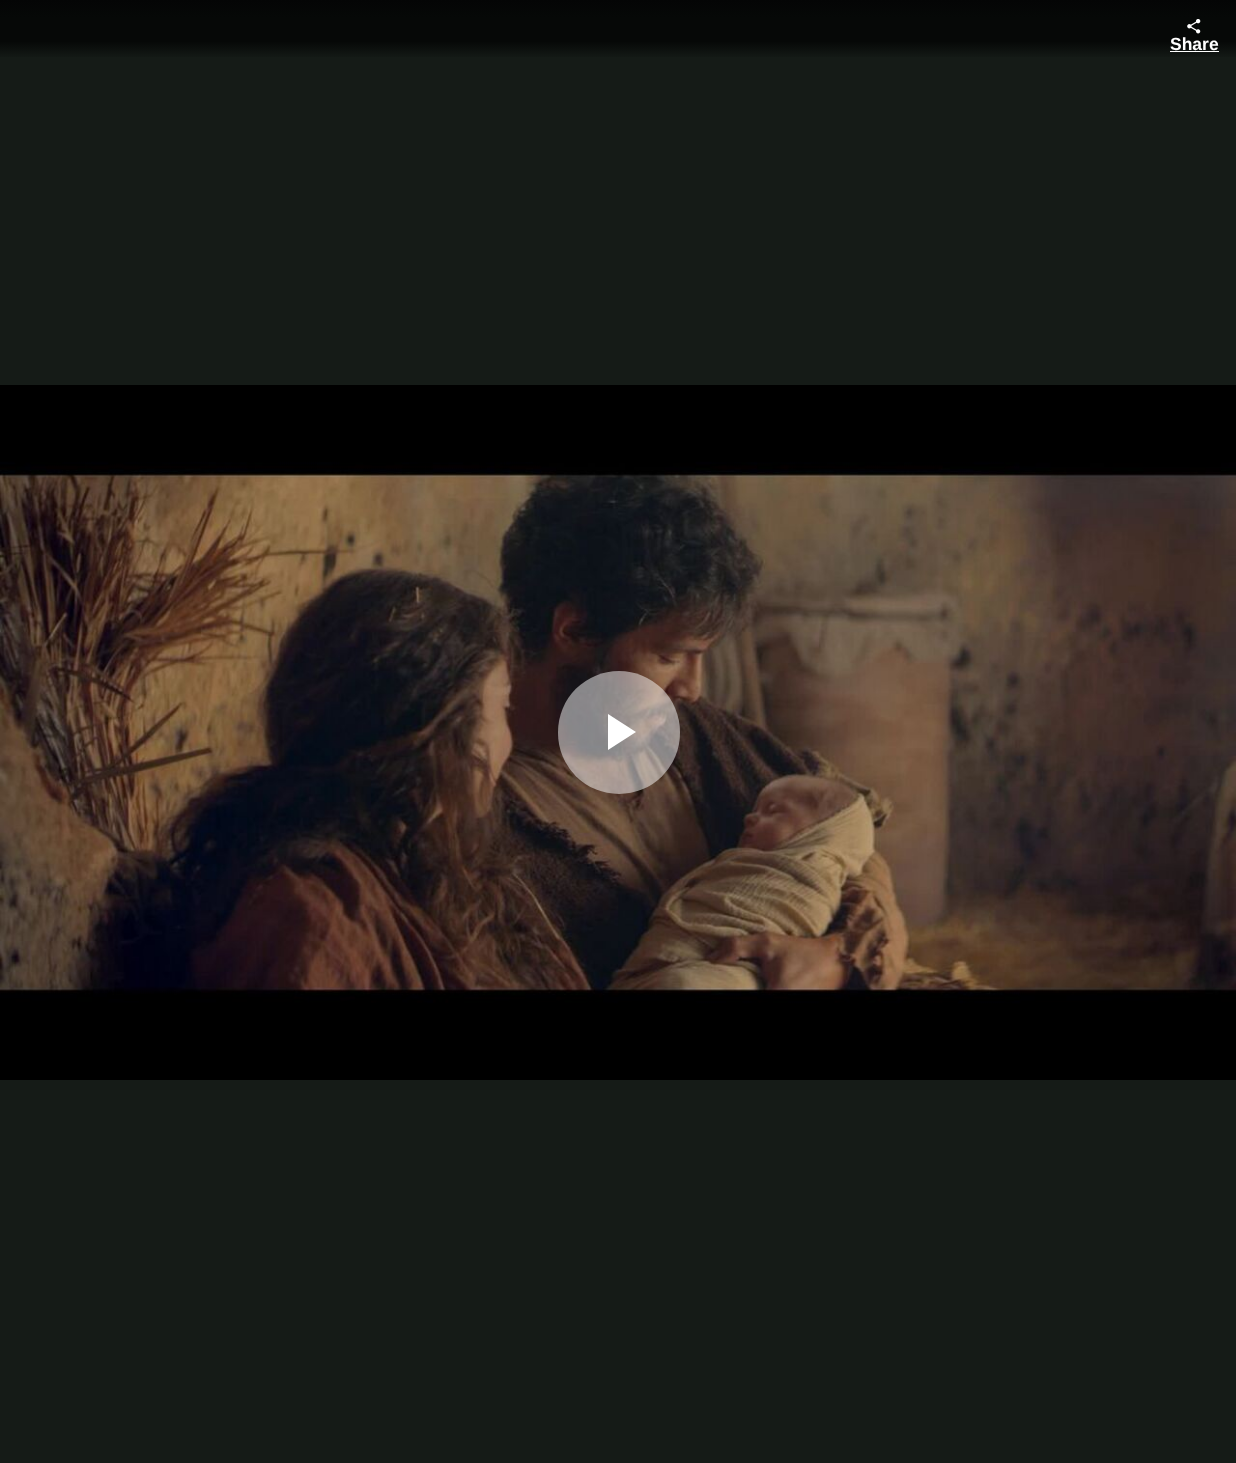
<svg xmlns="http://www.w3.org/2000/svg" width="1236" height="1463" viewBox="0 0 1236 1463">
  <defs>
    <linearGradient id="g1" gradientUnits="userSpaceOnUse" x1="618" y1="0" x2="618" y2="59"><stop offset="0" stop-color="rgb(4,5,5)"/><stop offset="0.3" stop-color="rgb(6,8,7)"/><stop offset="0.7" stop-color="rgb(6,8,7)"/><stop offset="1" stop-color="rgb(21,27,23)"/></linearGradient>
  </defs>
  <rect width="100%" height="100%" fill="rgb(21,27,23)"/>
  <rect x="0" y="0" width="1236" height="57" fill="url(#g1)"/>
  <image x="1187" y="19" width="14" height="15" href="pic1.png"/>
  <text x="1170" y="50" font-family="Liberation Sans" font-size="17.5" font-weight="bold" fill="rgb(255,255,255)">Share</text>
  <rect x="1170" y="51" width="49" height="1" fill="rgb(255,255,255)"/>
  <image x="0" y="385" width="1236" height="695" href="pic2.png"/>
  <rect x="558" y="671" width="122" height="123" rx="61" fill="rgba(255,255,255,0.49)"/>
  <path d="M608 714V750L636 732Z" fill="rgb(255,255,255)"/>
</svg>
